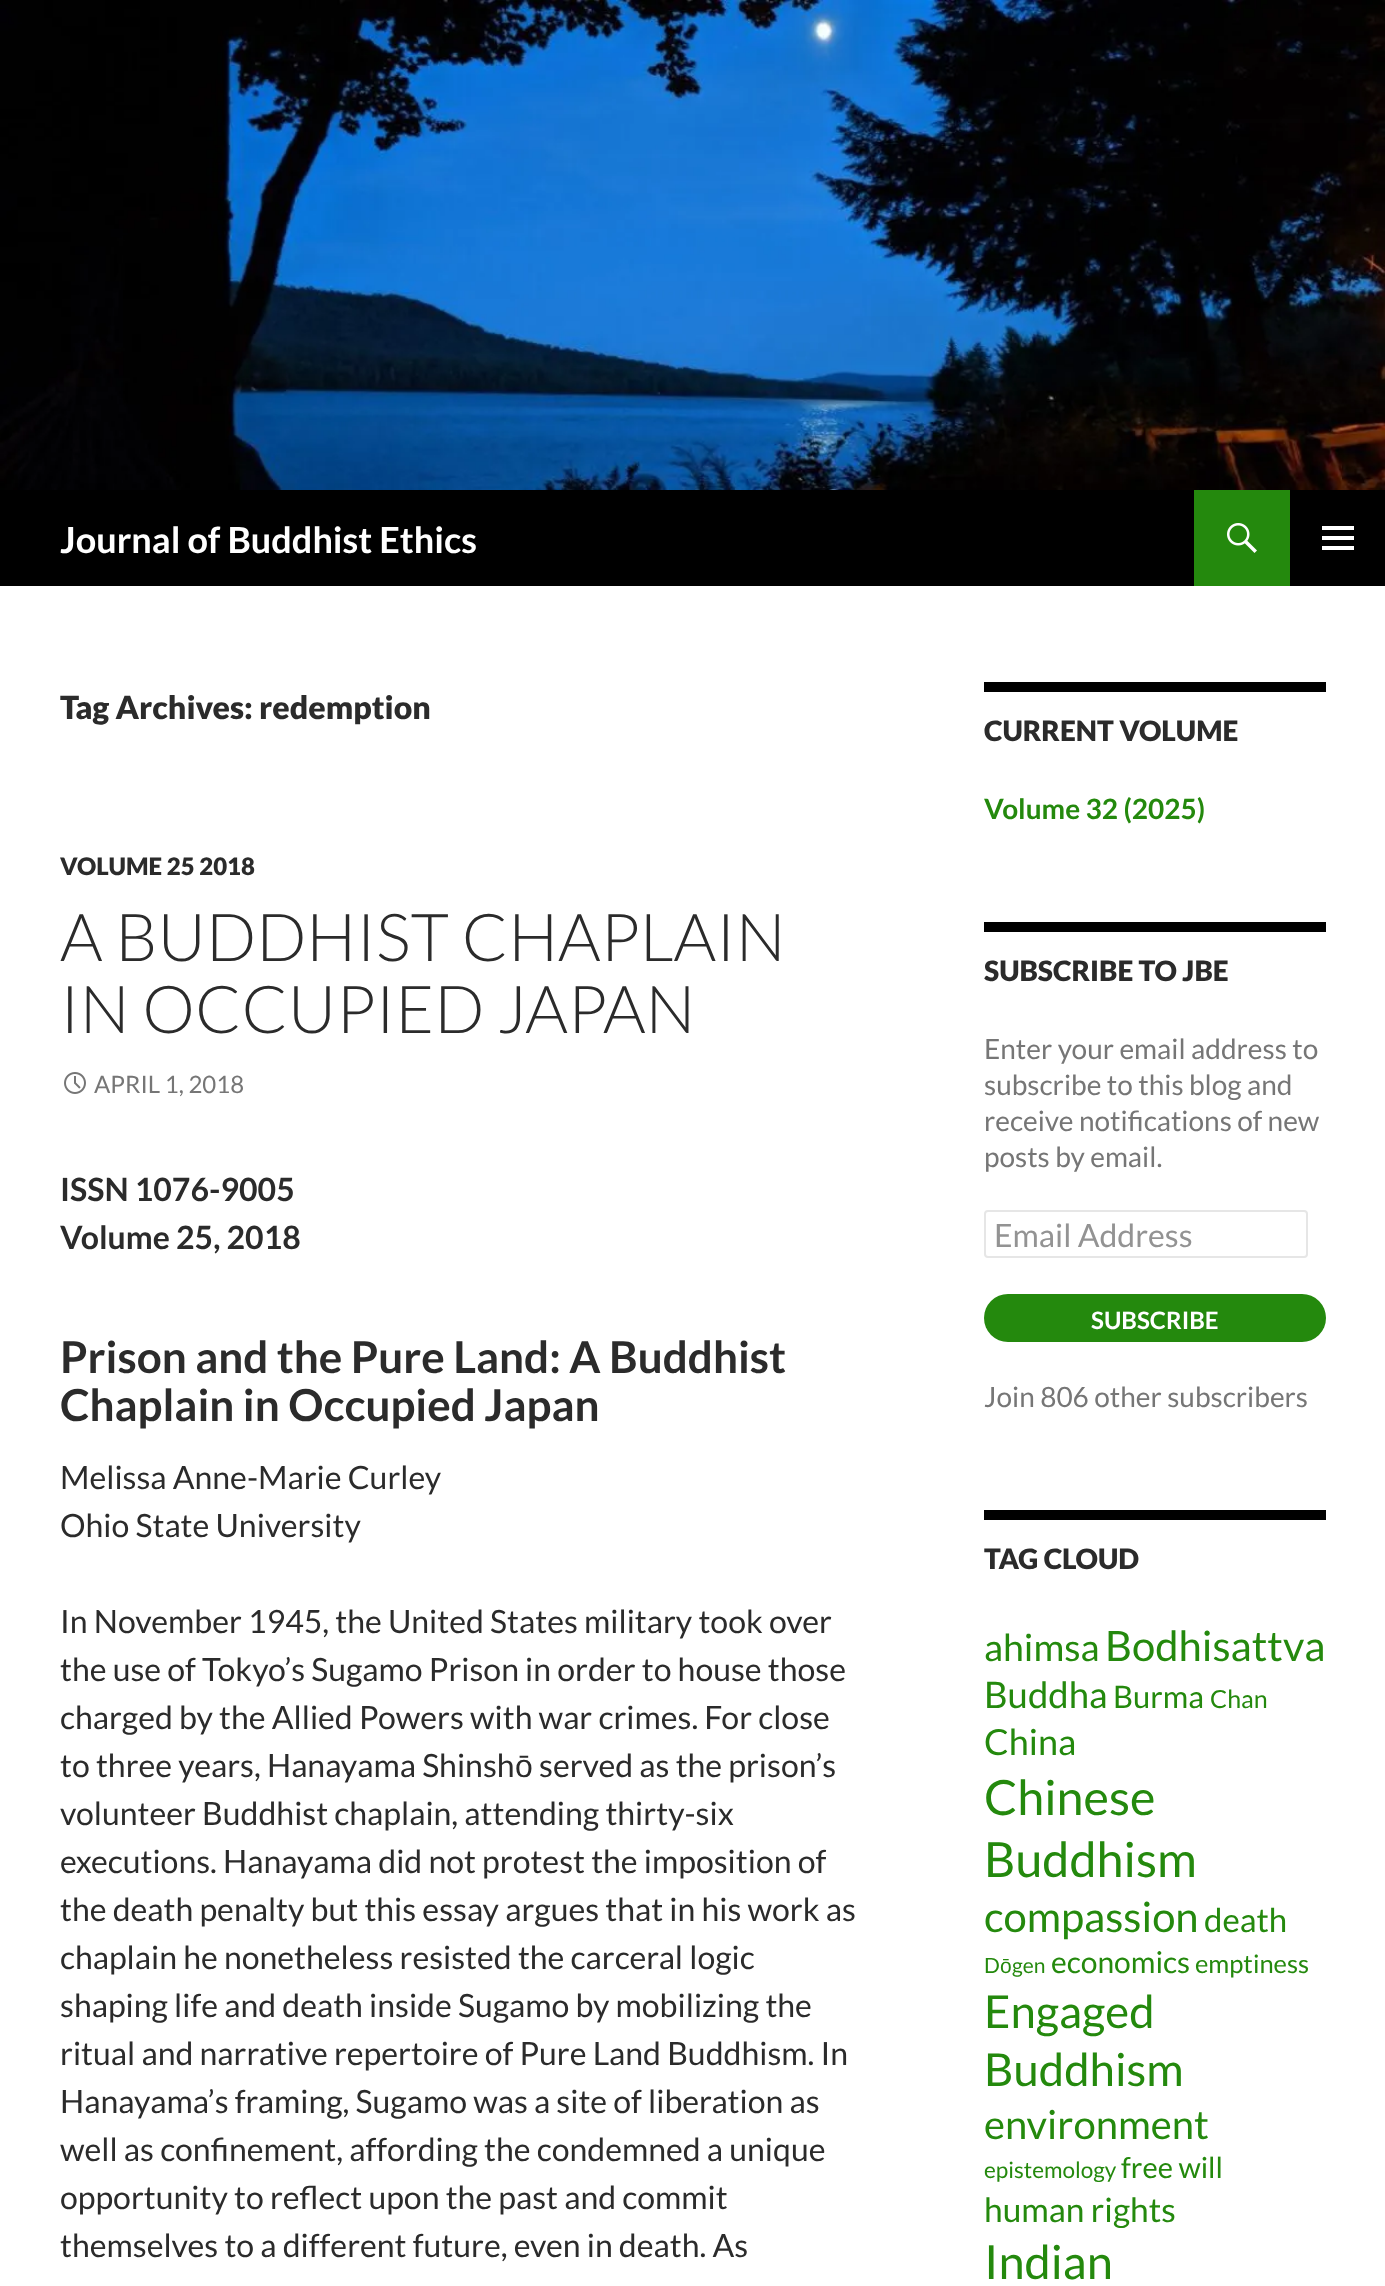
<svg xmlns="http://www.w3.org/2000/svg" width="1385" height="2286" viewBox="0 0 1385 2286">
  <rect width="100%" height="100%" fill="rgb(255,255,255)"/>
  <image x="0" y="0" width="1385" height="490" href="pic1.png"/>
  <rect x="0" y="490" width="1385" height="96" fill="rgb(0,0,0)"/>
  <text x="60" y="553" font-family="Lato" font-size="36" font-weight="bold" fill="rgb(255,255,255)">Journal of Buddhist Ethics</text>
  <rect x="1194" y="490" width="96" height="96" fill="rgb(36,137,13)"/>
  <image x="1227" y="523" width="30" height="30" href="pic2.png"/>
  <image x="1322" y="526" width="32" height="24" href="pic3.png"/>
  <text x="60" y="719" font-family="Lato" font-size="32" font-weight="900" fill="rgb(43,43,43)">Tag Archives: redemption</text>
  <text x="60" y="875" font-family="Lato" font-size="24" font-weight="900" fill="rgb(43,43,43)">VOLUME 25 2018</text>
  <g font-family="Lato" font-size="66" font-weight="300" fill="rgb(43,43,43)">
    <text>
      <tspan x="60" y="961">A BUDDHIST CHAPLAIN</tspan>
      <tspan x="60" y="1033">IN OCCUPIED JAPAN</tspan>
    </text>
  </g>
  <image x="64" y="1072" width="22" height="22" href="pic4.png"/>
  <text x="94" y="1093" font-family="Lato" font-size="24" fill="rgb(118,118,118)">APRIL 1, 2018</text>
  <g font-family="Lato" font-size="32" font-weight="bold" fill="rgb(43,43,43)">
    <text>
      <tspan x="60" y="1201">ISSN 1076-9005</tspan>
      <tspan x="60" y="1249">Volume 25, 2018</tspan>
    </text>
  </g>
  <g font-family="Lato" font-size="44" font-weight="bold" fill="rgb(43,43,43)">
    <text>
      <tspan x="60" y="1373">Prison and the Pure Land: A Buddhist</tspan>
      <tspan x="60" y="1421">Chaplain in Occupied Japan</tspan>
    </text>
  </g>
  <g font-family="Lato" font-size="32" fill="rgb(43,43,43)">
    <text>
      <tspan x="60" y="1489">Melissa Anne-Marie Curley</tspan>
      <tspan x="60" y="1537">Ohio State University</tspan>
    </text>
    <text>
      <tspan x="60" y="1633">In November 1945, the United States military took over</tspan>
      <tspan x="60" y="1681">the use of Tokyo’s Sugamo Prison in order to house those</tspan>
      <tspan x="60" y="1729">charged by the Allied Powers with war crimes. For close</tspan>
      <tspan x="60" y="1777">to three years, Hanayama Shinsh</tspan>
    </text>
  </g>
  <text x="515" y="1777" font-family="Liberation Sans" font-size="32" fill="rgb(43,43,43)">ō</text>
  <g font-family="Lato" font-size="32" fill="rgb(43,43,43)">
    <text x="539" y="1777">served as the prison’s</text>
    <text>
      <tspan x="60" y="1825">volunteer Buddhist chaplain, attending thirty-six</tspan>
      <tspan x="60" y="1873">executions. Hanayama did not protest the imposition of</tspan>
      <tspan x="60" y="1921">the death penalty but this essay argues that in his work as</tspan>
      <tspan x="60" y="1969">chaplain he nonetheless resisted the carceral logic</tspan>
      <tspan x="60" y="2017">shaping life and death inside Sugamo by mobilizing the</tspan>
      <tspan x="60" y="2065">ritual and narrative repertoire of Pure Land Buddhism. In</tspan>
      <tspan x="60" y="2113">Hanayama’s framing, Sugamo was a site of liberation as</tspan>
      <tspan x="60" y="2161">well as confinement, affording the condemned a unique</tspan>
      <tspan x="60" y="2209">opportunity to reflect upon the past and commit</tspan>
      <tspan x="60" y="2257">themselves to a different future, even in death. As</tspan>
    </text>
  </g>
  <rect x="984" y="682" width="342" height="10" fill="rgb(0,0,0)"/>
  <text x="984" y="741" font-family="Lato" font-size="28" font-weight="900" fill="rgb(43,43,43)">CURRENT VOLUME</text>
  <text x="984" y="819" font-family="Lato" font-size="28" font-weight="bold" fill="rgb(36,137,13)">Volume 32 (2025)</text>
  <rect x="984" y="922" width="342" height="10" fill="rgb(0,0,0)"/>
  <text x="984" y="981" font-family="Lato" font-size="28" font-weight="900" fill="rgb(43,43,43)">SUBSCRIBE TO JBE</text>
  <g font-family="Lato" font-size="28" fill="rgb(118,118,118)">
    <text>
      <tspan x="984" y="1059">Enter your email address to</tspan>
      <tspan x="984" y="1095">subscribe to this blog and</tspan>
      <tspan x="984" y="1131">receive notifications of new</tspan>
      <tspan x="984" y="1167">posts by email.</tspan>
    </text>
  </g>
  <rect x="985" y="1211" width="322" height="46" rx="3" fill="none" stroke="rgb(230,230,230)" stroke-width="2"/>
  <text x="994" y="1247" font-family="Lato" font-size="32" fill="rgb(147,147,147)">Email Address</text>
  <rect x="984" y="1294" width="342" height="48" rx="24" fill="rgb(36,137,13)"/>
  <text x="1091" y="1329" font-family="Lato" font-size="24" font-weight="bold" fill="rgb(255,255,255)">SUBSCRIBE</text>
  <text x="984" y="1407" font-family="Lato" font-size="28" fill="rgb(118,118,118)">Join 806 other subscribers</text>
  <rect x="984" y="1510" width="342" height="10" fill="rgb(0,0,0)"/>
  <text x="984" y="1569" font-family="Lato" font-size="28" font-weight="900" fill="rgb(43,43,43)">TAG CLOUD</text>
  <text x="984" y="1661" font-family="Lato" font-size="37.5" fill="rgb(36,137,13)">ahimsa</text>
  <text x="1105" y="1661" font-family="Lato" font-size="41.75" fill="rgb(36,137,13)">Bodhisattva</text>
  <text x="984" y="1708" font-family="Lato" font-size="36.5" fill="rgb(36,137,13)">Buddha</text>
  <text x="1113" y="1708" font-family="Lato" font-size="31" fill="rgb(36,137,13)">Burma</text>
  <text x="1210" y="1708" font-family="Lato" font-size="25" fill="rgb(36,137,13)">Chan</text>
  <text x="984" y="1755" font-family="Lato" font-size="36" fill="rgb(36,137,13)">China</text>
  <g font-family="Lato" font-size="48.5" fill="rgb(36,137,13)">
    <text>
      <tspan x="984" y="1815">Chinese</tspan>
      <tspan x="984" y="1877">Buddhism</tspan>
    </text>
  </g>
  <text x="984" y="1932" font-family="Lato" font-size="41.75" fill="rgb(36,137,13)">compassion</text>
  <text x="1204" y="1932" font-family="Lato" font-size="33" fill="rgb(36,137,13)">death</text>
  <text x="984" y="1973" font-family="Lato" font-size="21" fill="rgb(36,137,13)">D</text>
  <text x="1000" y="1973" font-family="Liberation Sans" font-size="21" fill="rgb(36,137,13)">ō</text>
  <text x="1012" y="1973" font-family="Lato" font-size="21" fill="rgb(36,137,13)">gen</text>
  <text x="1051" y="1973" font-family="Lato" font-size="30" fill="rgb(36,137,13)">economics</text>
  <text x="1195" y="1973" font-family="Lato" font-size="25.5" fill="rgb(36,137,13)">emptiness</text>
  <g font-family="Lato" font-size="45.5" fill="rgb(36,137,13)">
    <text>
      <tspan x="984" y="2028">Engaged</tspan>
      <tspan x="984" y="2086">Buddhism</tspan>
    </text>
  </g>
  <text x="984" y="2139" font-family="Lato" font-size="40" fill="rgb(36,137,13)">environment</text>
  <text x="984" y="2178" font-family="Lato" font-size="22.5" fill="rgb(36,137,13)">epistemology</text>
  <text x="1121" y="2178" font-family="Lato" font-size="29" fill="rgb(36,137,13)">free will</text>
  <text x="984" y="2222" font-family="Lato" font-size="33.5" fill="rgb(36,137,13)">human rights</text>
  <text x="984" y="2279" font-family="Lato" font-size="47" fill="rgb(36,137,13)">Indian</text>
</svg>
